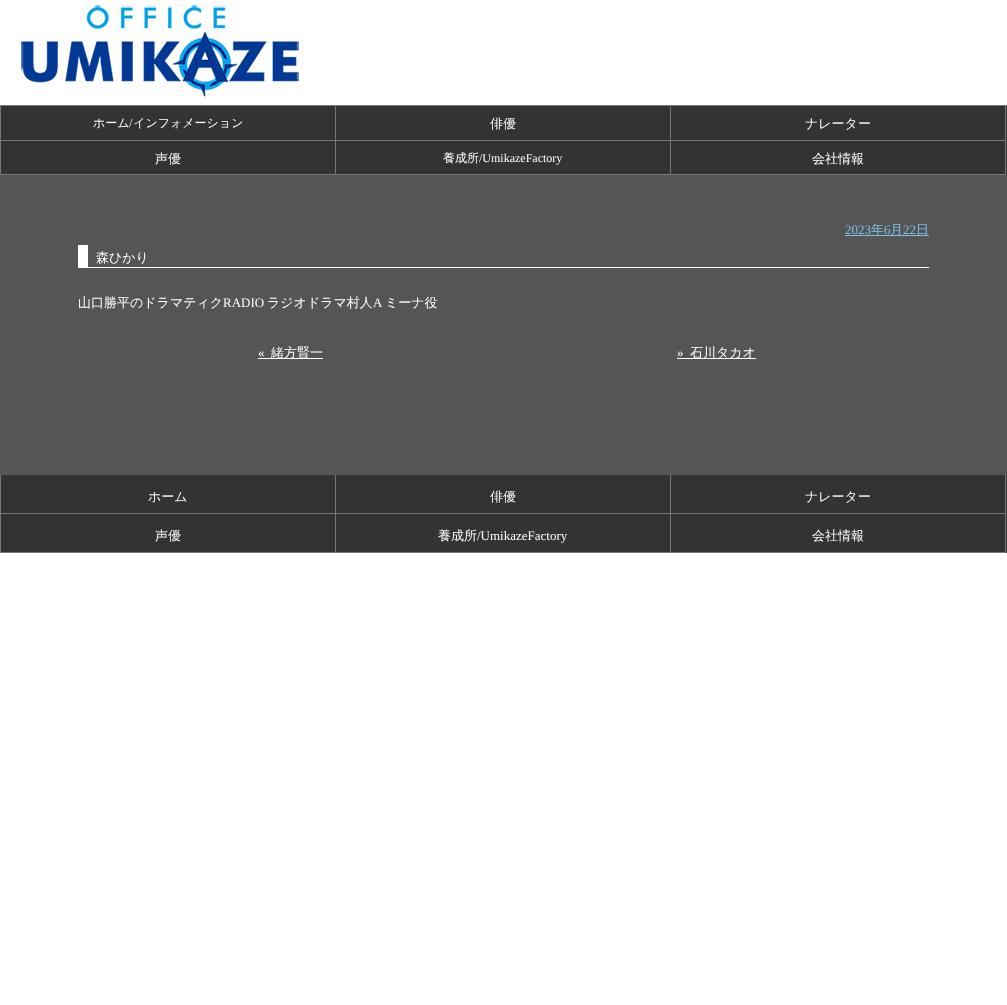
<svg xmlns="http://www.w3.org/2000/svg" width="1007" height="1005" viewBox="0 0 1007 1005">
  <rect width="100%" height="100%" fill="rgb(255,255,255)"/>
  <image x="21" y="5" width="278" height="94" href="pic1.png"/>
  <rect x="1" y="106" width="1006" height="69" fill="rgb(51,51,51)"/>
  <rect x="0" y="105" width="1007" height="1" fill="rgb(119,119,119)"/>
  <rect x="0" y="105" width="1" height="70" fill="rgb(119,119,119)"/>
  <rect x="335" y="106" width="1" height="69" fill="rgb(119,119,119)"/>
  <rect x="1" y="140" width="335" height="1" fill="rgb(119,119,119)"/>
  <text x="93" y="127" font-family="WenQuanYi Zen Hei" font-size="12" font-weight="500" fill="rgb(255,255,255)">ホーム インフォメーション</text>
  <text x="129" y="127" font-family="Liberation Serif" font-size="12" fill="rgb(255,255,255)">/</text>
  <rect x="670" y="106" width="1" height="69" fill="rgb(119,119,119)"/>
  <rect x="336" y="140" width="335" height="1" fill="rgb(119,119,119)"/>
  <text x="490" y="128" font-family="WenQuanYi Zen Hei" font-size="13" font-weight="500" fill="rgb(255,255,255)">俳優</text>
  <rect x="1005" y="106" width="1" height="69" fill="rgb(119,119,119)"/>
  <rect x="671" y="140" width="335" height="1" fill="rgb(119,119,119)"/>
  <text x="805" y="128" font-family="WenQuanYi Zen Hei" font-size="13" font-weight="500" fill="rgb(255,255,255)">ナレーター</text>
  <rect x="1" y="174" width="1005" height="1" fill="rgb(119,119,119)"/>
  <text x="155" y="163" font-family="WenQuanYi Zen Hei" font-size="13" font-weight="500" fill="rgb(255,255,255)">声優</text>
  <text x="443" y="162" font-family="WenQuanYi Zen Hei" font-size="12" font-weight="500" fill="rgb(255,255,255)">養成所</text>
  <text x="479" y="162" font-family="Liberation Serif" font-size="12" fill="rgb(255,255,255)">/UmikazeFactory</text>
  <text x="812" y="163" font-family="WenQuanYi Zen Hei" font-size="13" font-weight="500" fill="rgb(255,255,255)">会社情報</text>
  <rect x="0" y="175" width="1007" height="300" fill="rgb(85,85,85)"/>
  <text x="845" y="234" font-family="Liberation Serif" font-size="13" fill="rgb(123,195,230)">2023</text>
  <rect x="845" y="235" width="84" height="1" fill="rgb(123,195,230)"/>
  <text x="871" y="234" font-family="WenQuanYi Zen Hei" font-size="13" font-weight="500" fill="rgb(123,195,230)">年</text>
  <text x="884" y="234" font-family="Liberation Serif" font-size="13" fill="rgb(123,195,230)">6</text>
  <text x="890" y="234" font-family="WenQuanYi Zen Hei" font-size="13" font-weight="500" fill="rgb(123,195,230)">月</text>
  <text x="903" y="234" font-family="Liberation Serif" font-size="13" fill="rgb(123,195,230)">22</text>
  <text x="916" y="234" font-family="WenQuanYi Zen Hei" font-size="13" font-weight="500" fill="rgb(123,195,230)">日</text>
  <rect x="88" y="267" width="841" height="1" fill="rgb(255,255,255)"/>
  <rect x="78" y="245" width="10" height="23" fill="rgb(255,255,255)"/>
  <g font-family="WenQuanYi Zen Hei" font-size="13" font-weight="500" fill="rgb(255,255,255)">
    <text x="96" y="262">森ひかり</text>
    <text x="78" y="307">山口勝平のドラマティク</text>
  </g>
  <text x="223" y="307" font-family="Liberation Serif" font-size="13" fill="rgb(255,255,255)">RADIO</text>
  <text x="267" y="307" font-family="WenQuanYi Zen Hei" font-size="13" font-weight="500" fill="rgb(255,255,255)">ラジオドラマ村人</text>
  <text x="373" y="307" font-family="Liberation Serif" font-size="13" fill="rgb(255,255,255)">A</text>
  <text x="385" y="307" font-family="WenQuanYi Zen Hei" font-size="13" font-weight="500" fill="rgb(255,255,255)">ミーナ役</text>
  <text x="258" y="357" font-family="Liberation Serif" font-size="13" fill="rgb(255,255,255)">«</text>
  <rect x="258" y="358" width="65" height="1" fill="rgb(255,255,255)"/>
  <text x="271" y="357" font-family="WenQuanYi Zen Hei" font-size="13" font-weight="500" fill="rgb(255,255,255)">緒方賢一</text>
  <text x="677" y="357" font-family="Liberation Serif" font-size="13" fill="rgb(255,255,255)">»</text>
  <rect x="677" y="358" width="79" height="1" fill="rgb(255,255,255)"/>
  <text x="690" y="357" font-family="WenQuanYi Zen Hei" font-size="13" font-weight="500" fill="rgb(255,255,255)">石川タカオ</text>
  <rect x="1" y="475" width="1006" height="78" fill="rgb(51,51,51)"/>
  <rect x="0" y="475" width="1" height="78" fill="rgb(119,119,119)"/>
  <rect x="335" y="475" width="1" height="78" fill="rgb(119,119,119)"/>
  <rect x="1" y="513" width="335" height="1" fill="rgb(119,119,119)"/>
  <text x="148" y="501" font-family="WenQuanYi Zen Hei" font-size="13" font-weight="500" fill="rgb(255,255,255)">ホーム</text>
  <rect x="670" y="475" width="1" height="78" fill="rgb(119,119,119)"/>
  <rect x="336" y="513" width="335" height="1" fill="rgb(119,119,119)"/>
  <text x="490" y="501" font-family="WenQuanYi Zen Hei" font-size="13" font-weight="500" fill="rgb(255,255,255)">俳優</text>
  <rect x="1005" y="475" width="1" height="78" fill="rgb(119,119,119)"/>
  <rect x="671" y="513" width="335" height="1" fill="rgb(119,119,119)"/>
  <text x="805" y="501" font-family="WenQuanYi Zen Hei" font-size="13" font-weight="500" fill="rgb(255,255,255)">ナレーター</text>
  <rect x="1" y="552" width="1005" height="1" fill="rgb(119,119,119)"/>
  <g font-family="WenQuanYi Zen Hei" font-size="13" font-weight="500" fill="rgb(255,255,255)">
    <text x="155" y="540">声優</text>
    <text x="438" y="540">養成所</text>
  </g>
  <text x="477" y="540" font-family="Liberation Serif" font-size="13" fill="rgb(255,255,255)">/UmikazeFactory</text>
  <text x="812" y="540" font-family="WenQuanYi Zen Hei" font-size="13" font-weight="500" fill="rgb(255,255,255)">会社情報</text>
</svg>
